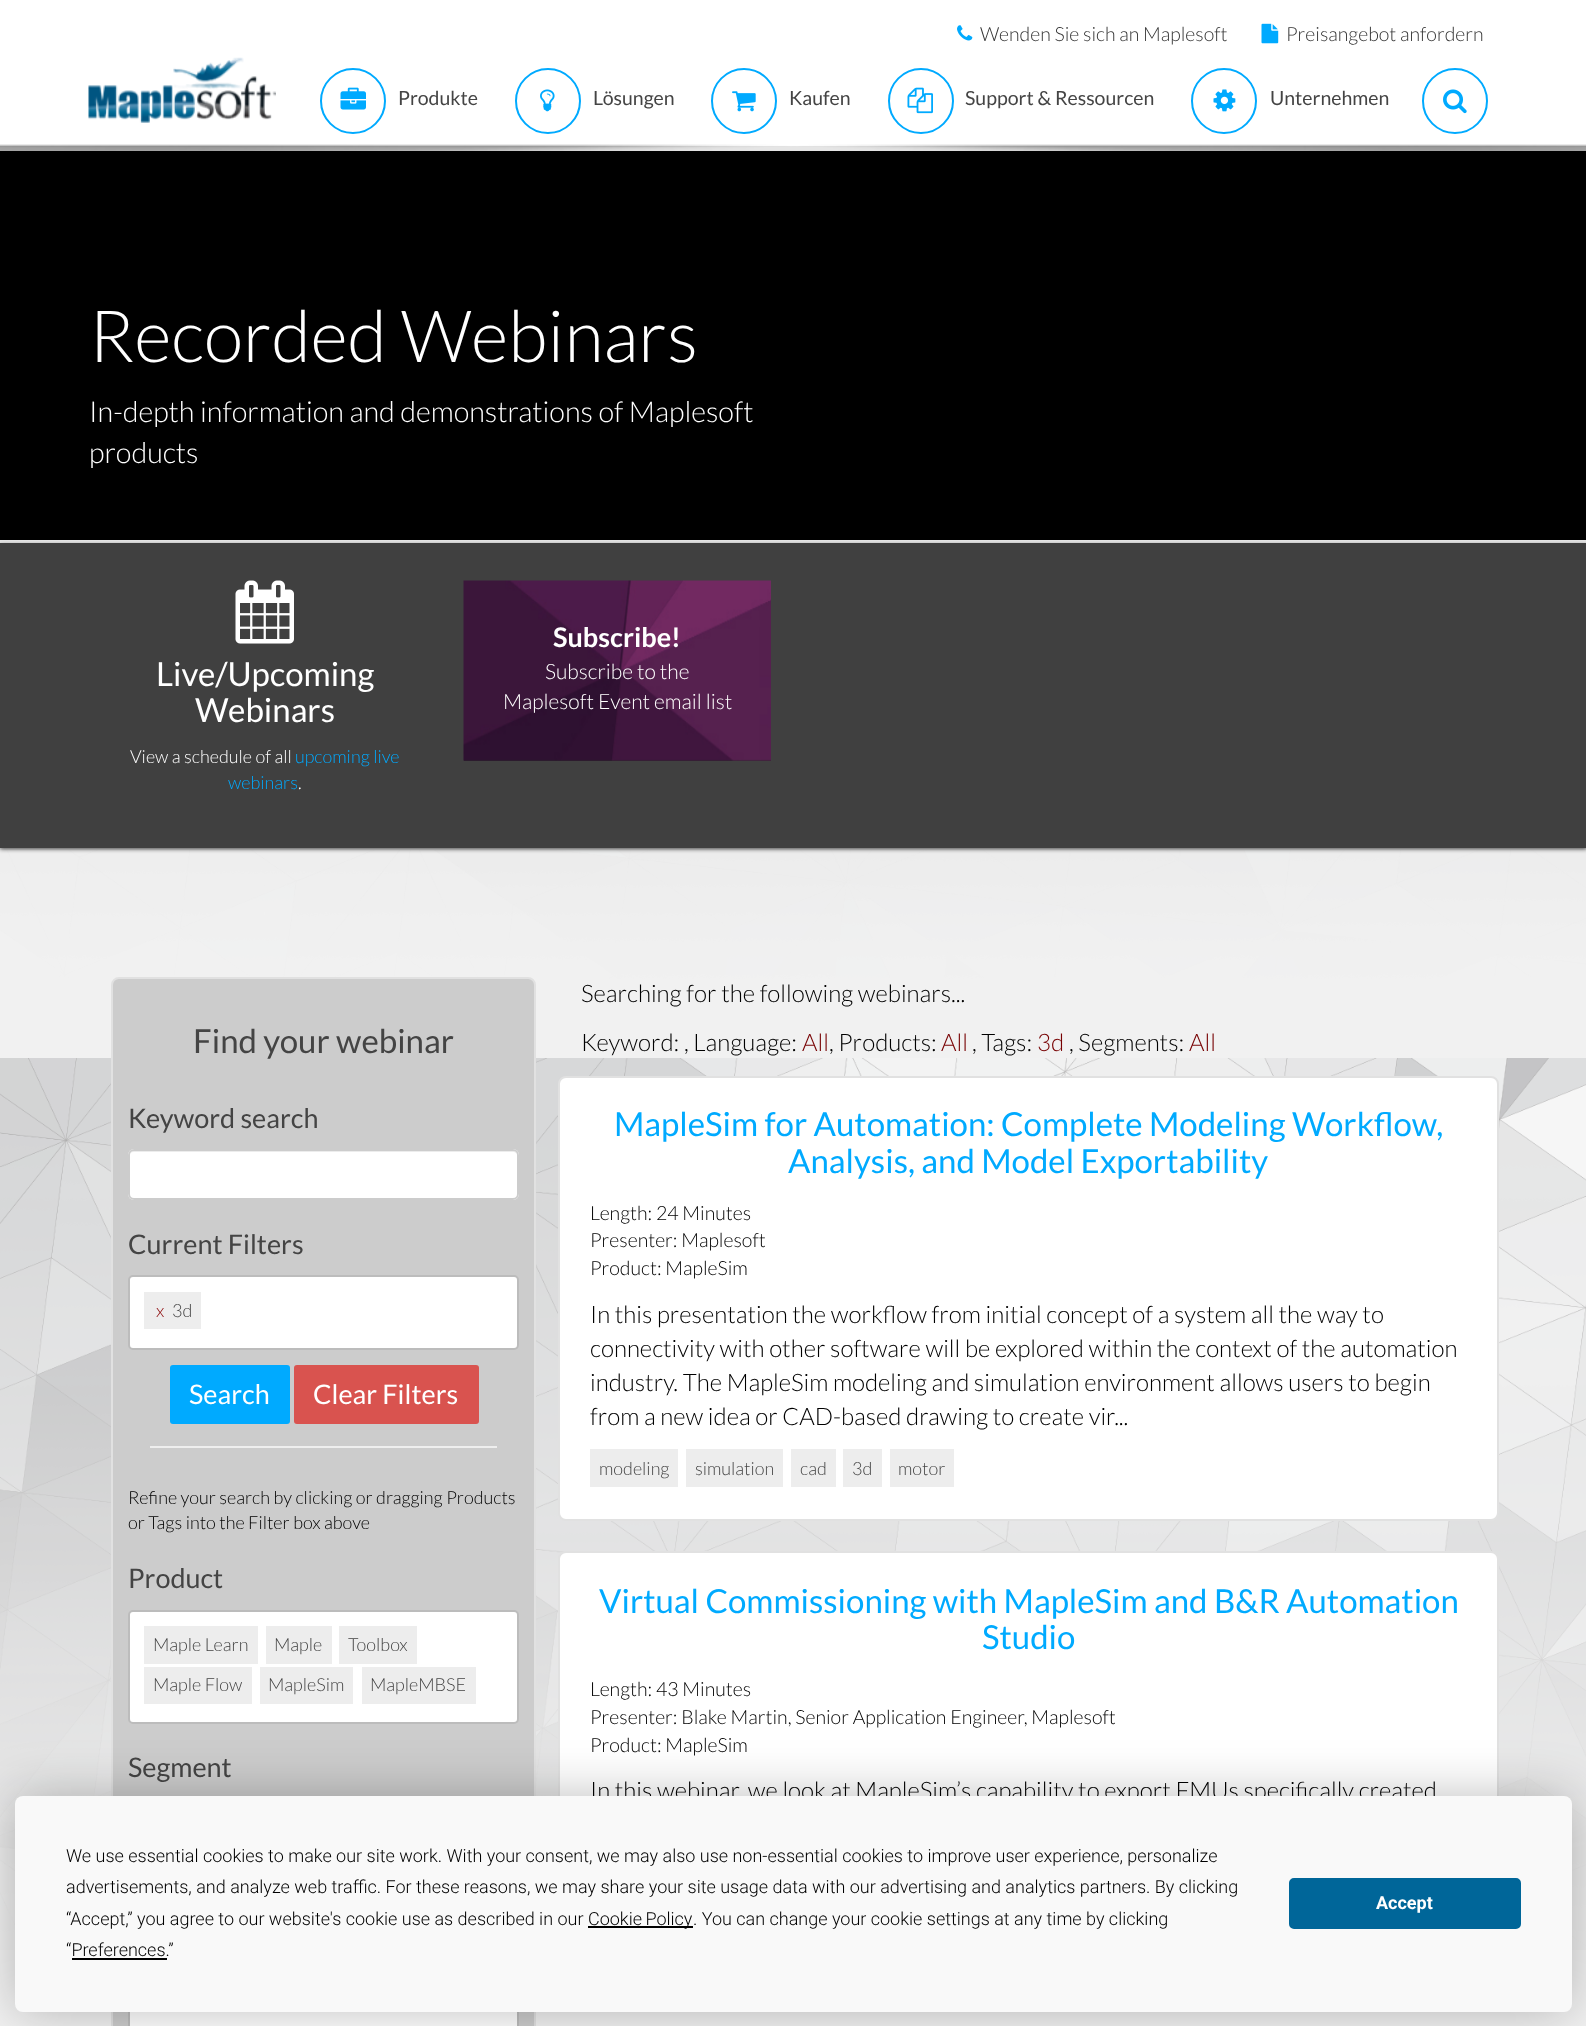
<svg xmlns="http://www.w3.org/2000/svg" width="1586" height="2026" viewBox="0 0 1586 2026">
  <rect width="100%" height="100%" fill="rgb(255,255,255)"/>
  <rect x="0" y="146" width="1586" height="5" fill="rgb(229,229,229)"/>
  <image x="957" y="25" width="16" height="16" href="pic1.png"/>
  <text x="980" y="41" font-family="Lato" font-size="19.5" font-weight="300" fill="rgb(51,51,51)">Wenden Sie sich an Maplesoft</text>
  <image x="1261" y="23" width="18" height="21" href="pic2.png"/>
  <text x="1286" y="41" font-family="Lato" font-size="19.5" font-weight="300" fill="rgb(51,51,51)">Preisangebot anfordern</text>
  <image x="88" y="57" width="188" height="66" href="pic3.png"/>
  <circle cx="353" cy="101" r="32" fill="none" stroke="rgb(0,170,255)" stroke-width="2"/>
  <image x="340" y="87" width="26" height="23" href="pic4.png"/>
  <text x="398" y="105" font-family="Lato" font-size="19.5" fill="rgb(68,68,68)">Produkte</text>
  <circle cx="548" cy="101" r="32" fill="none" stroke="rgb(0,170,255)" stroke-width="2"/>
  <image x="540" y="89" width="15" height="23" href="pic5.png"/>
  <text x="593" y="105" font-family="Lato" font-size="19.5" fill="rgb(68,68,68)">Lösungen</text>
  <circle cx="744" cy="101" r="32" fill="none" stroke="rgb(0,170,255)" stroke-width="2"/>
  <image x="732" y="91" width="24" height="21" href="pic6.png"/>
  <text x="789" y="105" font-family="Lato" font-size="19.5" fill="rgb(68,68,68)">Kaufen</text>
  <circle cx="921" cy="101" r="32" fill="none" stroke="rgb(0,170,255)" stroke-width="2"/>
  <image x="907" y="87" width="26" height="27" href="pic7.png"/>
  <text x="965" y="105" font-family="Lato" font-size="19.5" fill="rgb(68,68,68)">Support &amp; Ressourcen</text>
  <circle cx="1224" cy="101" r="32" fill="none" stroke="rgb(0,170,255)" stroke-width="2"/>
  <image x="1213" y="89" width="23" height="23" href="pic8.png"/>
  <text x="1270" y="105" font-family="Lato" font-size="19.5" fill="rgb(68,68,68)">Unternehmen</text>
  <circle cx="1455" cy="101" r="32" fill="none" stroke="rgb(0,170,255)" stroke-width="2"/>
  <image x="1443" y="89" width="24" height="25" href="pic9.png"/>
  <image x="0" y="144" width="1586" height="7" href="pic10.png"/>
  <rect x="0" y="540" width="1586" height="3" fill="rgb(229,229,229)"/>
  <rect x="0" y="151" width="1586" height="389" fill="rgb(0,0,0)"/>
  <text x="89" y="362" font-family="Lato" font-size="72" font-weight="300" fill="rgb(255,255,255)">Recorded Webinars</text>
  <g font-family="Lato" font-size="28.8" font-weight="300" fill="rgb(255,255,255)">
    <text>
      <tspan x="89" y="422">In-depth information and demonstrations of Maplesoft</tspan>
      <tspan x="89" y="463">products</tspan>
    </text>
  </g>
  <rect x="0" y="850" width="1586" height="1176" fill="rgb(241,241,241)"/>
  <image x="0" y="850" width="1586" height="1100" href="pic13.png"/>
  <rect x="0" y="848" width="1586" height="2" fill="rgb(229,229,229)"/>
  <rect x="0" y="545" width="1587" height="304" fill="rgba(0,0,0,0.7)" filter="blur(2px)"/>
  <rect x="0" y="543" width="1586" height="305" fill="rgb(64,64,64)"/>
  <image x="235" y="580" width="59" height="64" href="pic11.png"/>
  <g font-family="Lato" font-size="33" fill="rgb(255,255,255)">
    <text x="156" y="686">Live/Upcoming</text>
    <text x="195" y="722">Webinars</text>
  </g>
  <text x="130" y="763" font-family="Lato" font-size="18" font-weight="300" fill="rgb(255,255,255)">View a schedule of all</text>
  <g font-family="Lato" font-size="18" font-weight="300" fill="rgb(0,170,255)">
    <text x="295" y="763">upcoming live</text>
    <text x="228" y="789">webinars</text>
  </g>
  <text x="298" y="789" font-family="Lato" font-size="18" font-weight="300" fill="rgb(255,255,255)">.</text>
  <rect x="464" y="759" width="307" height="2" fill="rgb(42,42,42)"/>
  <image x="463" y="580" width="308" height="181" href="pic12.png"/>
  <text x="553" y="647" font-family="Lato" font-size="27" font-weight="bold" fill="rgb(255,255,255)">Subscribe!</text>
  <g font-family="Lato" font-size="21" font-weight="300" fill="rgb(255,255,255)">
    <text x="545" y="679">Subscribe to the</text>
    <text x="503" y="709">Maplesoft Event email list</text>
  </g>
  <rect x="112" y="978" width="423" height="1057" rx="7" fill="rgb(204,204,204)" stroke="rgb(225,225,225)" stroke-width="2"/>
  <text x="193" y="1053" font-family="Lato" font-size="33" fill="rgb(68,68,68)">Find your webinar</text>
  <text x="128" y="1128" font-family="Lato" font-size="27" fill="rgb(68,68,68)">Keyword search</text>
  <rect x="128" y="1149" width="391" height="51" rx="6" fill="rgb(255,255,255)"/>
  <path d="M134 1152H513C515 1152 518 1154 518 1156C518 1153 516 1151 513 1151H134C131 1151 129 1153 129 1156C129 1154 131 1152 134 1152Z" fill="rgb(236,236,236)"/>
  <rect x="129" y="1150" width="389" height="49" rx="5" fill="none" stroke="rgb(204,204,204)" stroke-width="2"/>
  <text x="128" y="1254" font-family="Lato" font-size="27" fill="rgb(68,68,68)">Current Filters</text>
  <rect x="129" y="1276" width="389" height="73" rx="4" fill="rgb(255,255,255)" stroke="rgb(188,188,188)" stroke-width="2"/>
  <rect x="144" y="1292" width="57" height="37" fill="rgb(237,237,237)"/>
  <text x="156" y="1317" font-family="Lato" font-size="18" font-weight="300" fill="rgb(139,4,6)">x</text>
  <text x="172" y="1317" font-family="Lato" font-size="18" font-weight="300" fill="rgb(68,68,68)">3d</text>
  <rect x="170" y="1365" width="120" height="59" rx="3" fill="rgb(0,170,255)"/>
  <text x="189" y="1404" font-family="Lato" font-size="27" fill="rgb(255,255,255)">Search</text>
  <rect x="294" y="1365" width="185" height="59" rx="3" fill="rgb(217,83,79)"/>
  <text x="313" y="1404" font-family="Lato" font-size="27" fill="rgb(255,255,255)">Clear Filters</text>
  <rect x="150" y="1446" width="347" height="2" fill="rgb(238,238,238)"/>
  <g font-family="Lato" font-size="18" font-weight="300" fill="rgb(0,0,0)">
    <text>
      <tspan x="128" y="1504">Refine your search by clicking or dragging Products</tspan>
      <tspan x="128" y="1529">or Tags into the Filter box above</tspan>
    </text>
  </g>
  <text x="128" y="1588" font-family="Lato" font-size="27" fill="rgb(68,68,68)">Product</text>
  <rect x="129" y="1611" width="389" height="112" rx="4" fill="rgb(255,255,255)" stroke="rgb(188,188,188)" stroke-width="2"/>
  <rect x="144" y="1626" width="114" height="38" fill="rgb(237,237,237)"/>
  <text x="153" y="1651" font-family="Lato" font-size="18" font-weight="300" fill="rgb(68,68,68)">Maple Learn</text>
  <rect x="266" y="1626" width="66" height="38" fill="rgb(237,237,237)"/>
  <text x="274" y="1651" font-family="Lato" font-size="18" font-weight="300" fill="rgb(68,68,68)">Maple</text>
  <rect x="339" y="1626" width="78" height="38" fill="rgb(237,237,237)"/>
  <text x="348" y="1651" font-family="Lato" font-size="18" font-weight="300" fill="rgb(68,68,68)">Toolbox</text>
  <rect x="144" y="1667" width="108" height="37" fill="rgb(237,237,237)"/>
  <text x="153" y="1691" font-family="Lato" font-size="18" font-weight="300" fill="rgb(68,68,68)">Maple Flow</text>
  <rect x="260" y="1667" width="93" height="37" fill="rgb(237,237,237)"/>
  <text x="268" y="1691" font-family="Lato" font-size="18" font-weight="300" fill="rgb(68,68,68)">MapleSim</text>
  <rect x="362" y="1667" width="114" height="37" fill="rgb(237,237,237)"/>
  <text x="370" y="1691" font-family="Lato" font-size="18" font-weight="300" fill="rgb(68,68,68)">MapleMBSE</text>
  <text x="128" y="1777" font-family="Lato" font-size="27" fill="rgb(68,68,68)">Segment</text>
  <rect x="130" y="2012" width="387" height="14" fill="rgb(255,255,255)"/>
  <rect x="129" y="2008" width="389" height="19" fill="none" stroke="rgb(188,188,188)" stroke-width="2"/>
  <g font-family="Lato" font-size="24" font-weight="300" fill="rgb(0,0,0)">
    <text x="581" y="1002">Searching for the following webinars...</text>
    <text x="581" y="1051">Keyword: , Language:</text>
  </g>
  <text x="802" y="1051" font-family="Lato" font-size="24" font-weight="300" fill="rgb(119,0,2)">All</text>
  <text x="829" y="1051" font-family="Lato" font-size="24" font-weight="300" fill="rgb(0,0,0)">, Products:</text>
  <text x="941" y="1051" font-family="Lato" font-size="24" font-weight="300" fill="rgb(119,0,2)">All</text>
  <text x="972" y="1051" font-family="Lato" font-size="24" font-weight="300" fill="rgb(0,0,0)">, Tags:</text>
  <text x="1037" y="1051" font-family="Lato" font-size="24" font-weight="300" fill="rgb(119,0,2)">3d</text>
  <text x="1069" y="1051" font-family="Lato" font-size="24" font-weight="300" fill="rgb(0,0,0)">, Segments:</text>
  <text x="1189" y="1051" font-family="Lato" font-size="24" font-weight="300" fill="rgb(119,0,2)">All</text>
  <rect x="559" y="1077" width="939" height="443" rx="7" fill="rgb(255,255,255)" stroke="rgb(225,225,225)" stroke-width="2"/>
  <g font-family="Lato" font-size="33" fill="rgb(0,170,255)">
    <text x="614" y="1136">MapleSim for Automation: Complete Modeling Workflow,</text>
    <text x="788" y="1173">Analysis, and Model Exportability</text>
  </g>
  <g font-family="Lato" font-size="19.5" font-weight="300" fill="rgb(0,0,0)">
    <text>
      <tspan x="590" y="1220">Length: 24 Minutes</tspan>
      <tspan x="590" y="1247">Presenter: Maplesoft</tspan>
      <tspan x="590" y="1275">Product: MapleSim</tspan>
    </text>
  </g>
  <g font-family="Lato" font-size="24" font-weight="300" fill="rgb(0,0,0)">
    <text>
      <tspan x="590" y="1323">In this presentation the workflow from initial concept of a system all the way to</tspan>
      <tspan x="590" y="1357">connectivity with other software will be explored within the context of the automation</tspan>
      <tspan x="590" y="1391">industry. The MapleSim modeling and simulation environment allows users to begin</tspan>
      <tspan x="590" y="1425">from a new idea or CAD-based drawing to create vir...</tspan>
    </text>
  </g>
  <rect x="590" y="1449" width="88" height="38" fill="rgb(237,237,237)"/>
  <text x="599" y="1475" font-family="Lato" font-size="18" font-weight="300" fill="rgb(68,68,68)">modeling</text>
  <rect x="686" y="1449" width="97" height="38" fill="rgb(237,237,237)"/>
  <text x="695" y="1475" font-family="Lato" font-size="18" font-weight="300" fill="rgb(68,68,68)">simulation</text>
  <rect x="791" y="1449" width="45" height="38" fill="rgb(237,237,237)"/>
  <text x="800" y="1475" font-family="Lato" font-size="18" font-weight="300" fill="rgb(68,68,68)">cad</text>
  <rect x="843" y="1449" width="39" height="38" fill="rgb(237,237,237)"/>
  <text x="852" y="1475" font-family="Lato" font-size="18" font-weight="300" fill="rgb(68,68,68)">3d</text>
  <rect x="890" y="1449" width="64" height="38" fill="rgb(237,237,237)"/>
  <text x="898" y="1475" font-family="Lato" font-size="18" font-weight="300" fill="rgb(68,68,68)">motor</text>
  <rect x="559" y="1552" width="939" height="445" rx="7" fill="rgb(255,255,255)" stroke="rgb(225,225,225)" stroke-width="2"/>
  <g font-family="Lato" font-size="33" fill="rgb(0,170,255)">
    <text x="599" y="1613">Virtual Commissioning with MapleSim and B&amp;R Automation</text>
    <text x="982" y="1649">Studio</text>
  </g>
  <g font-family="Lato" font-size="19.5" font-weight="300" fill="rgb(0,0,0)">
    <text>
      <tspan x="590" y="1696">Length: 43 Minutes</tspan>
      <tspan x="590" y="1724">Presenter: Blake Martin, Senior Application Engineer, Maplesoft</tspan>
      <tspan x="590" y="1752">Product: MapleSim</tspan>
    </text>
  </g>
  <text x="590" y="1799" font-family="Lato" font-size="24" font-weight="300" fill="rgb(0,0,0)">In this webinar, we look at MapleSim’s capability to export FMUs specifically created</text>
  <rect x="15" y="1796" width="1557" height="216" rx="8" fill="rgba(0,0,0,0.25)" filter="blur(26px)"/>
  <rect x="15" y="1796" width="1557" height="216" rx="8" fill="rgb(249,249,249)"/>
  <g font-family="Roboto" font-size="18" font-weight="300" fill="rgb(0,0,0)">
    <text>
      <tspan x="66" y="1862">We use essential cookies to make our site work. With your consent, we may also use non-essential cookies to improve user experience, personalize</tspan>
      <tspan x="66" y="1893">advertisements, and analyze web traffic. For these reasons, we may share your site usage data with our advertising and analytics partners. By clicking</tspan>
      <tspan x="66" y="1925">“Accept,” you agree to our website's cookie use as described in our</tspan>
    </text>
  </g>
  <rect x="588" y="1926" width="105" height="2" fill="rgb(0,0,0)"/>
  <g font-family="Roboto" font-size="18" font-weight="300" fill="rgb(0,0,0)">
    <text x="588" y="1925" word-spacing="-1">Cookie Policy</text>
    <text x="693" y="1925">. You can change your cookie settings at any time by clicking</text>
    <text x="66" y="1956">“Preferences.”</text>
  </g>
  <rect x="72" y="1958" width="95" height="2" fill="rgb(0,0,0)"/>
  <rect x="1290" y="1879" width="230" height="49" rx="4" fill="rgb(0,102,153)" stroke="rgb(0,102,153)" stroke-width="2"/>
  <text x="1376" y="1909" font-family="Roboto" font-size="18" font-weight="bold" fill="rgb(255,255,255)">Accept</text>
</svg>
